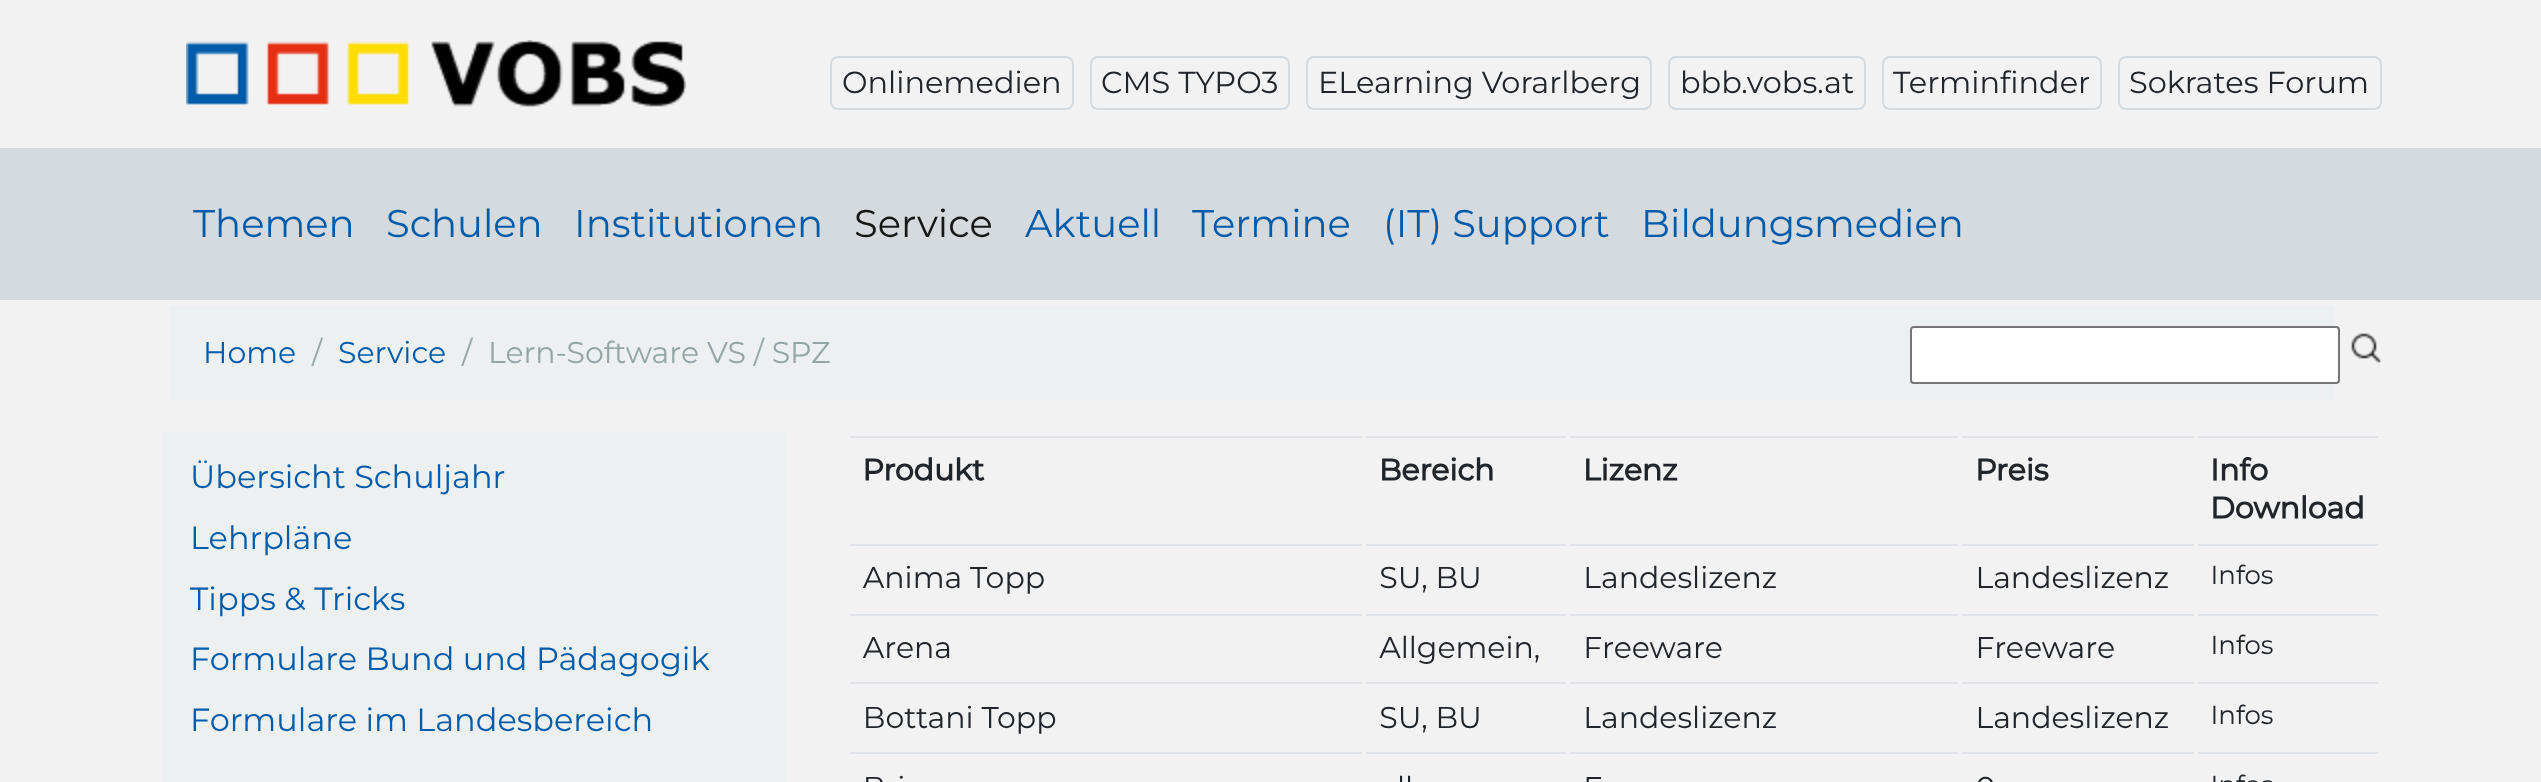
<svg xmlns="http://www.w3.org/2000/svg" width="2541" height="782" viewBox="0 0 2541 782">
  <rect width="100%" height="100%" fill="rgb(242,242,242)"/>
  <image x="186" y="40" width="500" height="67" href="pic1.png"/>
  <rect x="831" y="57" width="242" height="52" rx="7" fill="none" stroke="rgb(212,218,222)" stroke-width="2"/>
  <text x="842" y="93" font-family="Montserrat" font-size="30.4" fill="rgb(33,37,41)">Onlinemedien</text>
  <rect x="1091" y="57" width="198" height="52" rx="7" fill="none" stroke="rgb(212,218,222)" stroke-width="2"/>
  <text x="1101" y="93" font-family="Montserrat" font-size="30.4" fill="rgb(33,37,41)">CMS TYPO3</text>
  <rect x="1307" y="57" width="344" height="52" rx="7" fill="none" stroke="rgb(212,218,222)" stroke-width="2"/>
  <text x="1318" y="93" font-family="Montserrat" font-size="30.4" fill="rgb(33,37,41)">ELearning Vorarlberg</text>
  <rect x="1669" y="57" width="196" height="52" rx="7" fill="none" stroke="rgb(212,218,222)" stroke-width="2"/>
  <text x="1680" y="93" font-family="Montserrat" font-size="30.4" fill="rgb(33,37,41)">bbb.vobs.at</text>
  <rect x="1883" y="57" width="218" height="52" rx="7" fill="none" stroke="rgb(212,218,222)" stroke-width="2"/>
  <text x="1893" y="93" font-family="Montserrat" font-size="30.4" fill="rgb(33,37,41)">Terminfinder</text>
  <rect x="2119" y="57" width="262" height="52" rx="7" fill="none" stroke="rgb(212,218,222)" stroke-width="2"/>
  <text x="2129" y="93" font-family="Montserrat" font-size="30.4" fill="rgb(33,37,41)">Sokrates Forum</text>
  <rect x="0" y="148" width="2541" height="152" fill="rgb(212,218,222)"/>
  <g font-family="Montserrat" font-size="38.5" fill="rgb(0,92,170)">
    <text x="193" y="237">Themen</text>
    <text x="386" y="237">Schulen</text>
    <text x="574" y="237">Institutionen</text>
  </g>
  <text x="854" y="237" font-family="Montserrat" font-size="38.5" fill="rgb(21,22,22)">Service</text>
  <g font-family="Montserrat" font-size="38.5" fill="rgb(0,92,170)">
    <text x="1025" y="237">Aktuell</text>
    <text x="1192" y="237">Termine</text>
    <text x="1383" y="237">(IT) Support</text>
    <text x="1641" y="237">Bildungsmedien</text>
  </g>
  <rect x="170" y="306" width="2164" height="94" fill="rgb(236,240,241)"/>
  <text x="203" y="363" font-family="Montserrat" font-size="30" fill="rgb(0,92,170)">Home</text>
  <text x="312" y="363" font-family="Montserrat" font-size="30" fill="rgb(149,165,166)">/</text>
  <text x="338" y="363" font-family="Montserrat" font-size="30" fill="rgb(0,92,170)">Service</text>
  <g font-family="Montserrat" font-size="30" fill="rgb(149,165,166)">
    <text x="462" y="363">/</text>
    <text x="488" y="363">Lern-Software VS / SPZ</text>
  </g>
  <rect x="1911" y="327" width="428" height="56" rx="3" fill="rgb(255,255,255)" stroke="rgb(118,118,118)" stroke-width="2"/>
  <image x="2351" y="333" width="30" height="30" href="pic2.png"/>
  <rect x="162" y="432" width="624" height="350" fill="rgb(236,240,241)"/>
  <g font-family="Montserrat" font-size="32" fill="rgb(0,92,170)">
    <text>
      <tspan x="190" y="488">Übersicht Schuljahr</tspan>
      <tspan x="190" y="549">Lehrpläne</tspan>
      <tspan x="190" y="610">Tipps &amp; Tricks</tspan>
      <tspan x="190" y="670">Formulare Bund und Pädagogik</tspan>
      <tspan x="190" y="731">Formulare im Landesbereich</tspan>
    </text>
  </g>
  <image x="850" y="436" width="1528" height="346" href="pic3.png"/>
</svg>
